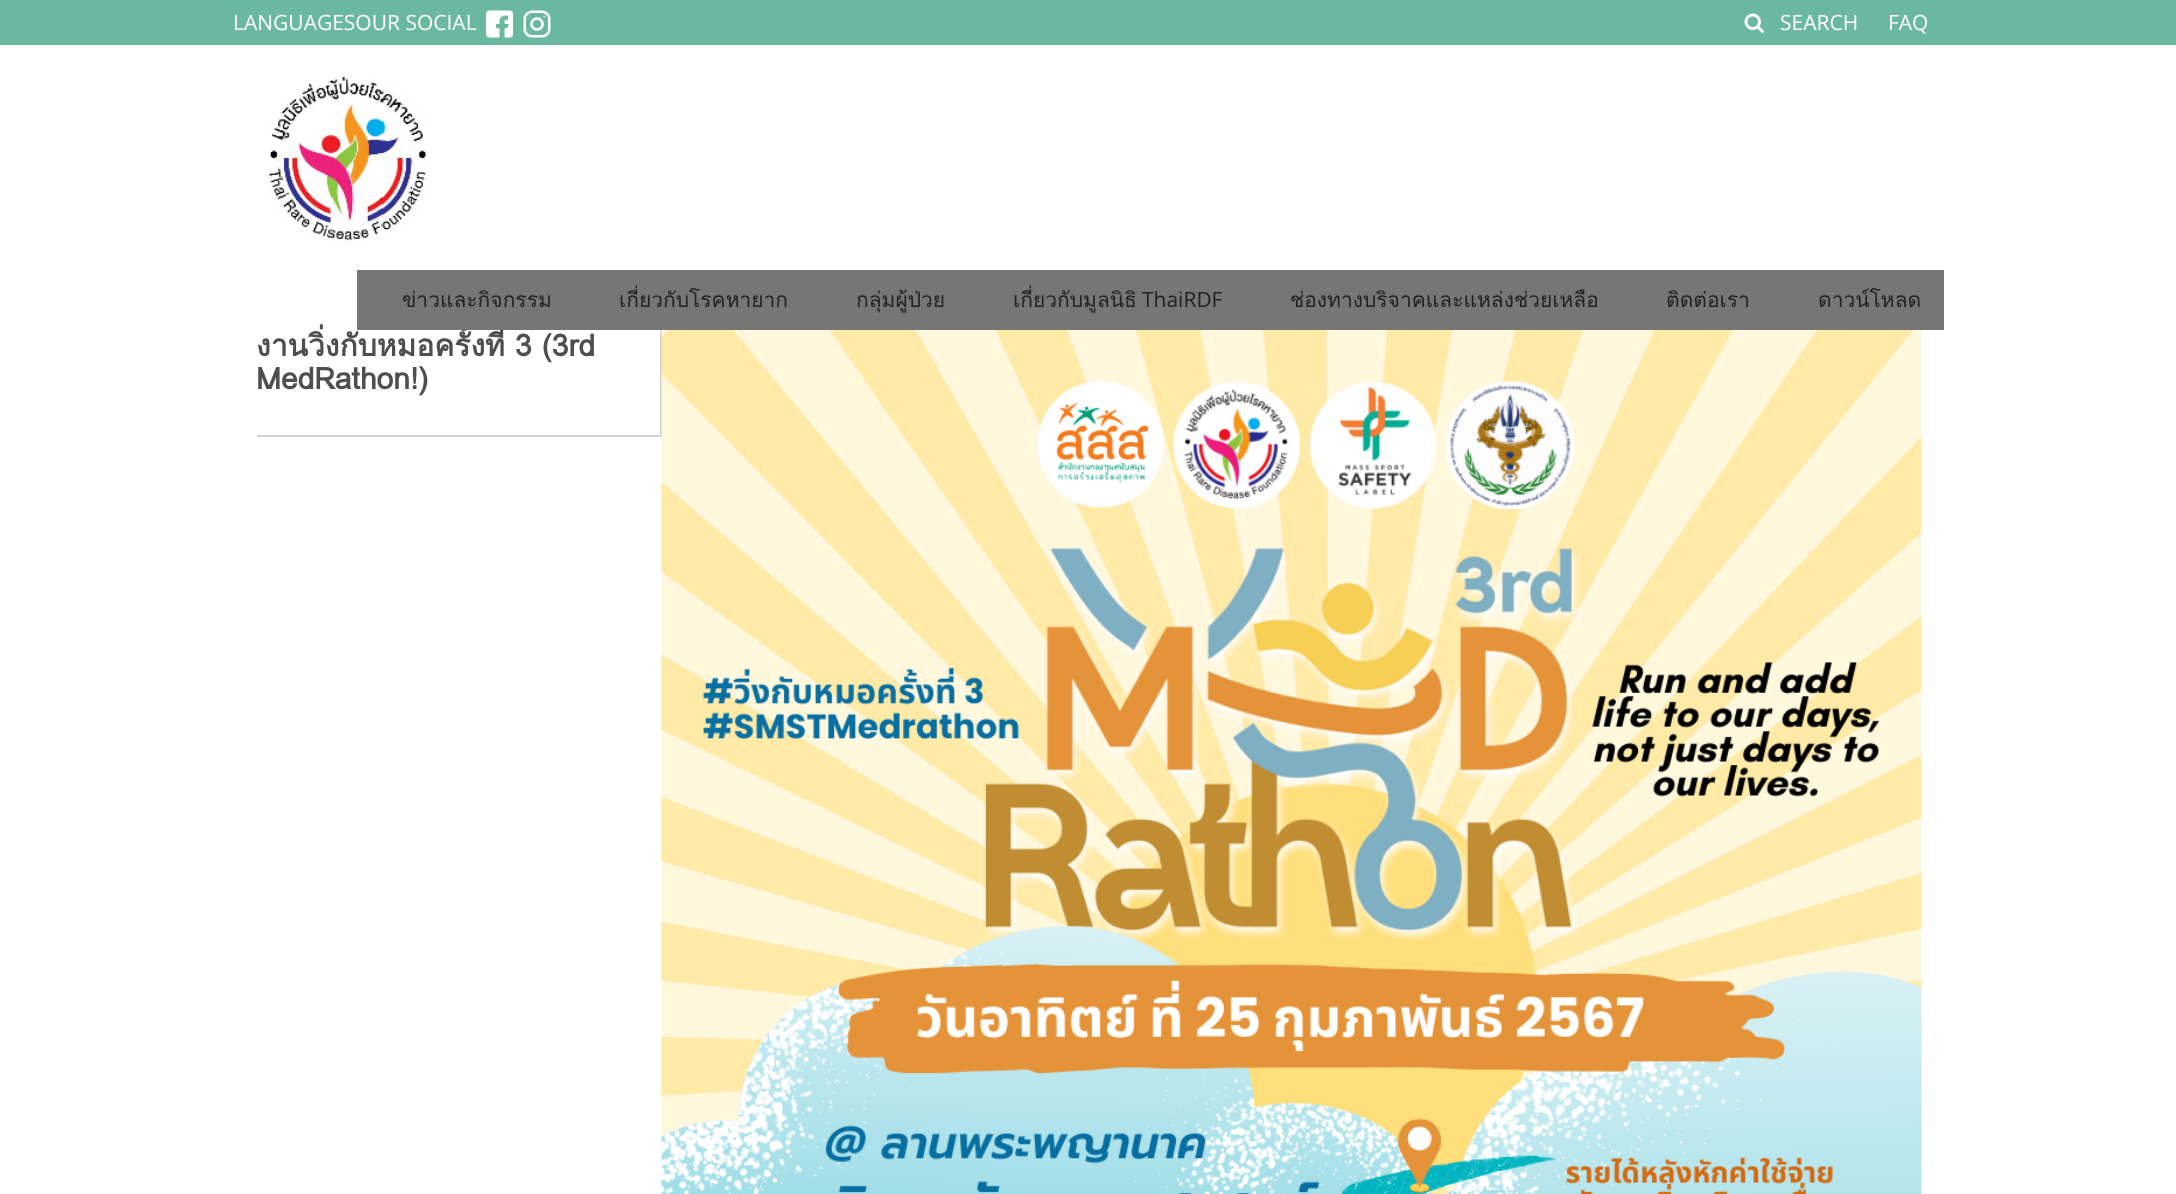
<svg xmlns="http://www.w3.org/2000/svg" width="2176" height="1194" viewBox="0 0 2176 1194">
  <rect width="100%" height="100%" fill="rgb(255,255,255)"/>
  <rect x="0" y="0" width="2176" height="45" fill="rgb(106,184,160)"/>
  <text x="233" y="30" font-family="Open Sans" font-size="21" fill="rgb(255,255,255)">LANGUAGESOUR SOCIAL</text>
  <image x="486" y="10" width="27" height="28" href="pic1.png"/>
  <image x="523" y="10" width="28" height="28" href="pic2.png"/>
  <image x="1744" y="13" width="20" height="20" href="pic3.png"/>
  <g font-family="Open Sans" font-size="21" fill="rgb(255,255,255)">
    <text x="1780" y="30">SEARCH</text>
    <text x="1888" y="30">FAQ</text>
  </g>
  <image x="264" y="75" width="167" height="169" href="pic4.png"/>
  <text x="256" y="356" font-family="Loma" font-size="30" font-weight="bold" fill="rgb(78,78,78)">งานวิ่งกับหมอครั้งที่ 3 (3rd</text>
  <rect x="357" y="270" width="1587" height="60" fill="rgb(118,118,118)"/>
  <g font-family="Loma" font-size="21" fill="rgb(34,34,34)">
    <text x="402" y="307">ข่าวและกิจกรรม</text>
    <text x="619" y="307">เกี่ยวกับโรคหายาก</text>
    <text x="856" y="307">กลุ่มผู้ป่วย</text>
    <text x="1013" y="307">เกี่ยวกับมูลนิธิ</text>
  </g>
  <text x="1142" y="307" font-family="Open Sans" font-size="21" fill="rgb(34,34,34)">ThaiRDF</text>
  <g font-family="Loma" font-size="21" fill="rgb(34,34,34)">
    <text x="1290" y="307">ช่องทางบริจาคและแหล่งช่วยเหลือ</text>
    <text x="1666" y="307">ติดต่อเรา</text>
    <text x="1818" y="307">ดาวน์โหลด</text>
  </g>
  <rect x="660" y="330" width="2" height="107" fill="rgb(209,209,209)"/>
  <text x="256" y="389" font-family="Loma" font-size="30" font-weight="bold" fill="rgb(78,78,78)">MedRathon!)</text>
  <rect x="257" y="435" width="403" height="2" fill="rgb(209,209,209)"/>
  <image x="661" y="330" width="1261" height="864" href="pic5.png"/>
</svg>
